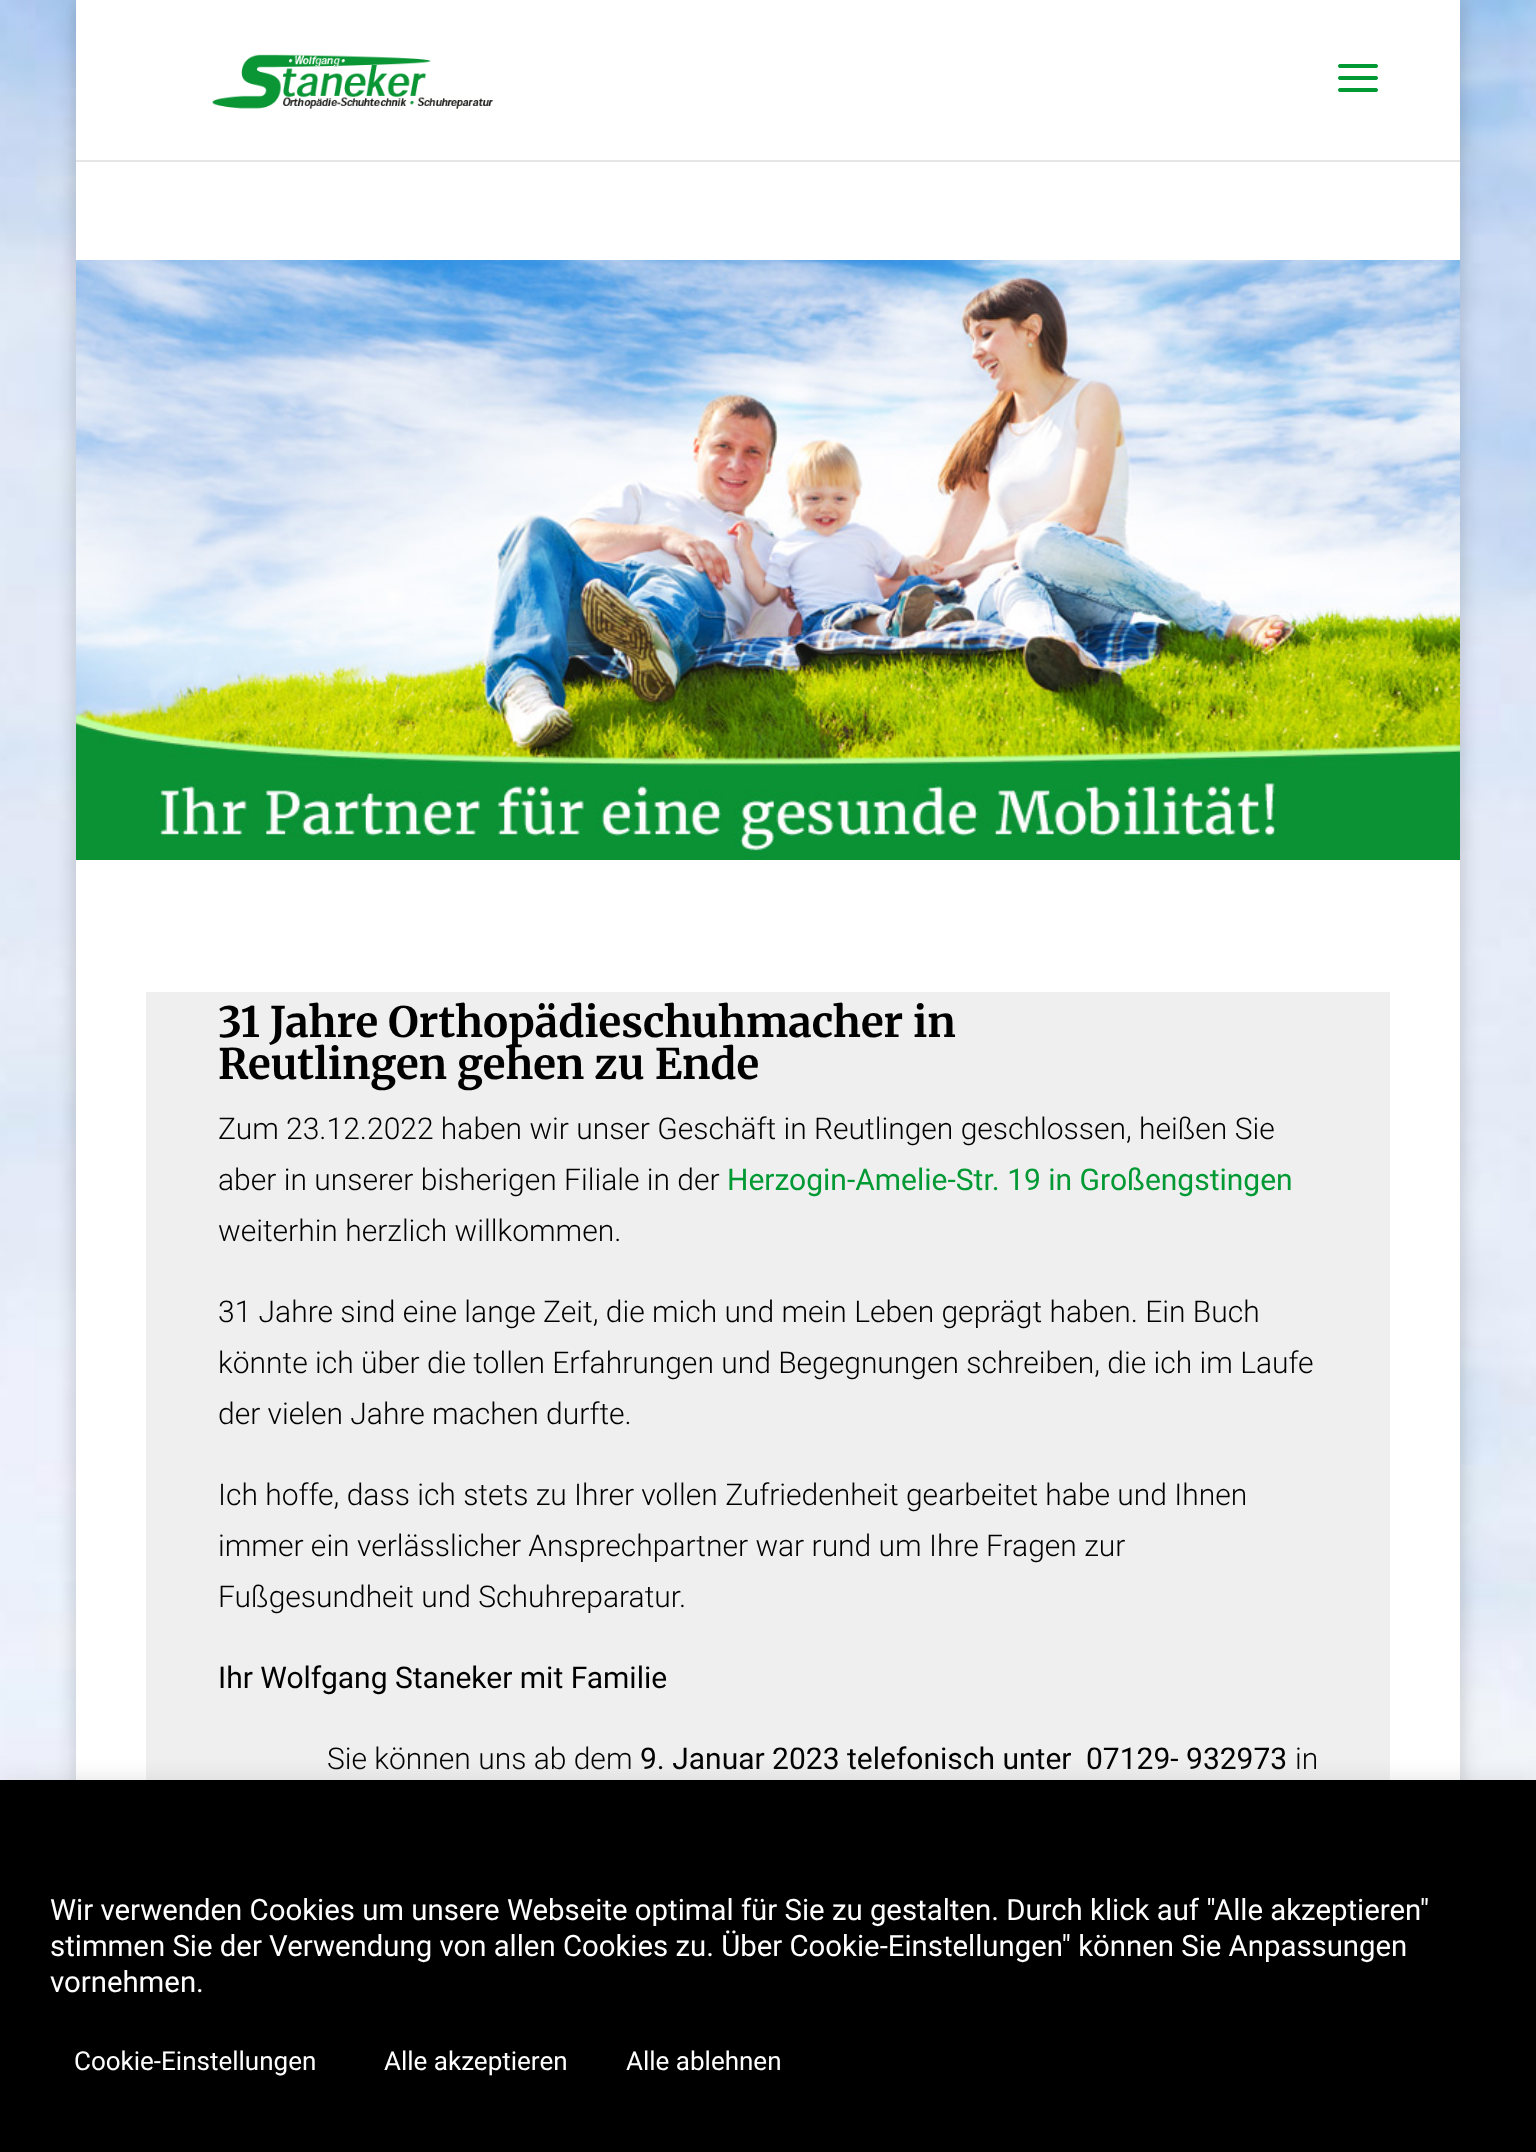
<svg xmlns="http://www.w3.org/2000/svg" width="1536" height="2152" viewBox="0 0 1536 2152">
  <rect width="100%" height="100%" fill="rgb(255,255,255)"/>
  <image x="0" y="0" width="1536" height="1780" href="pic1.png"/>
  <rect x="76" y="0" width="1384" height="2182" fill="rgba(0,0,0,0.2)" filter="blur(10px)"/>
  <rect x="76" y="160" width="1384" height="2" fill="rgb(230,230,230)"/>
  <rect x="76" y="0" width="1384" height="160" fill="rgb(255,255,255)"/>
  <image x="212" y="54" width="282" height="55" href="pic2.png"/>
  <image x="1338" y="64" width="40" height="28" href="pic3.png"/>
  <rect x="76" y="162" width="1384" height="1618" fill="rgb(255,255,255)"/>
  <image x="76" y="260" width="1384" height="600" href="pic4.png"/>
  <rect x="146" y="992" width="1244" height="788" fill="rgb(239,239,239)"/>
  <g font-family="Merriweather" font-size="42" font-weight="bold" fill="rgb(0,0,0)">
    <text>
      <tspan x="218" y="1037">31 Jahre Orthopädieschuhmacher in</tspan>
      <tspan x="218" y="1079">Reutlingen gehen zu Ende</tspan>
    </text>
  </g>
  <g font-family="Roboto" font-size="30" font-weight="300" fill="rgb(0,0,0)">
    <text>
      <tspan x="218" y="1139">Zum 23.12.2022 haben wir unser Geschäft in Reutlingen geschlossen, heißen Sie</tspan>
      <tspan x="218" y="1190">aber in unserer bisherigen Filiale in der</tspan>
    </text>
  </g>
  <text x="727" y="1190" font-family="Roboto" font-size="30" fill="rgb(0,153,51)">Herzogin-Amelie-Str. 19 in Großengstingen</text>
  <g font-family="Roboto" font-size="30" font-weight="300" fill="rgb(0,0,0)">
    <text x="218" y="1241">weiterhin herzlich willkommen.</text>
    <text>
      <tspan x="218" y="1322">31 Jahre sind eine lange Zeit, die mich und mein Leben geprägt haben. Ein Buch</tspan>
      <tspan x="218" y="1373">könnte ich über die tollen Erfahrungen und Begegnungen schreiben, die ich im Laufe</tspan>
      <tspan x="218" y="1424">der vielen Jahre machen durfte.</tspan>
    </text>
    <text>
      <tspan x="218" y="1505">Ich hoffe, dass ich stets zu Ihrer vollen Zufriedenheit gearbeitet habe und Ihnen</tspan>
      <tspan x="218" y="1556">immer ein verlässlicher Ansprechpartner war rund um Ihre Fragen zur</tspan>
      <tspan x="218" y="1607">Fußgesundheit und Schuhreparatur.</tspan>
    </text>
  </g>
  <text x="218" y="1688" font-family="Roboto" font-size="30" fill="rgb(0,0,0)">Ihr Wolfgang Staneker mit Familie</text>
  <text x="327" y="1769" font-family="Roboto" font-size="30" font-weight="300" fill="rgb(0,0,0)">Sie können uns ab dem</text>
  <g font-family="Roboto" font-size="30" fill="rgb(0,0,0)">
    <text x="640" y="1769">9. Januar 2023 telefonisch unter</text>
    <text x="1086" y="1769">07129- 932973</text>
  </g>
  <text x="1295" y="1769" font-family="Roboto" font-size="30" font-weight="300" fill="rgb(0,0,0)">in</text>
  <rect x="0" y="1778" width="1536" height="372" fill="rgba(172,171,171,0.3)" filter="blur(10px)"/>
  <rect x="0" y="1780" width="1536" height="372" fill="rgb(0,0,0)"/>
  <g font-family="Roboto" font-size="29.35" fill="rgb(255,255,255)">
    <text>
      <tspan x="50" y="1920">Wir verwenden Cookies um unsere Webseite optimal für Sie zu gestalten. Durch klick auf "Alle akzeptieren"</tspan>
      <tspan x="50" y="1956">stimmen Sie der Verwendung von allen Cookies zu. Über Cookie-Einstellungen" können Sie Anpassungen</tspan>
      <tspan x="50" y="1992">vornehmen.</tspan>
    </text>
  </g>
  <g font-family="Roboto" font-size="26" fill="rgb(255,255,255)">
    <text x="74" y="2070">Cookie-Einstellungen</text>
    <text x="384" y="2070">Alle akzeptieren</text>
    <text x="626" y="2070">Alle ablehnen</text>
  </g>
</svg>
